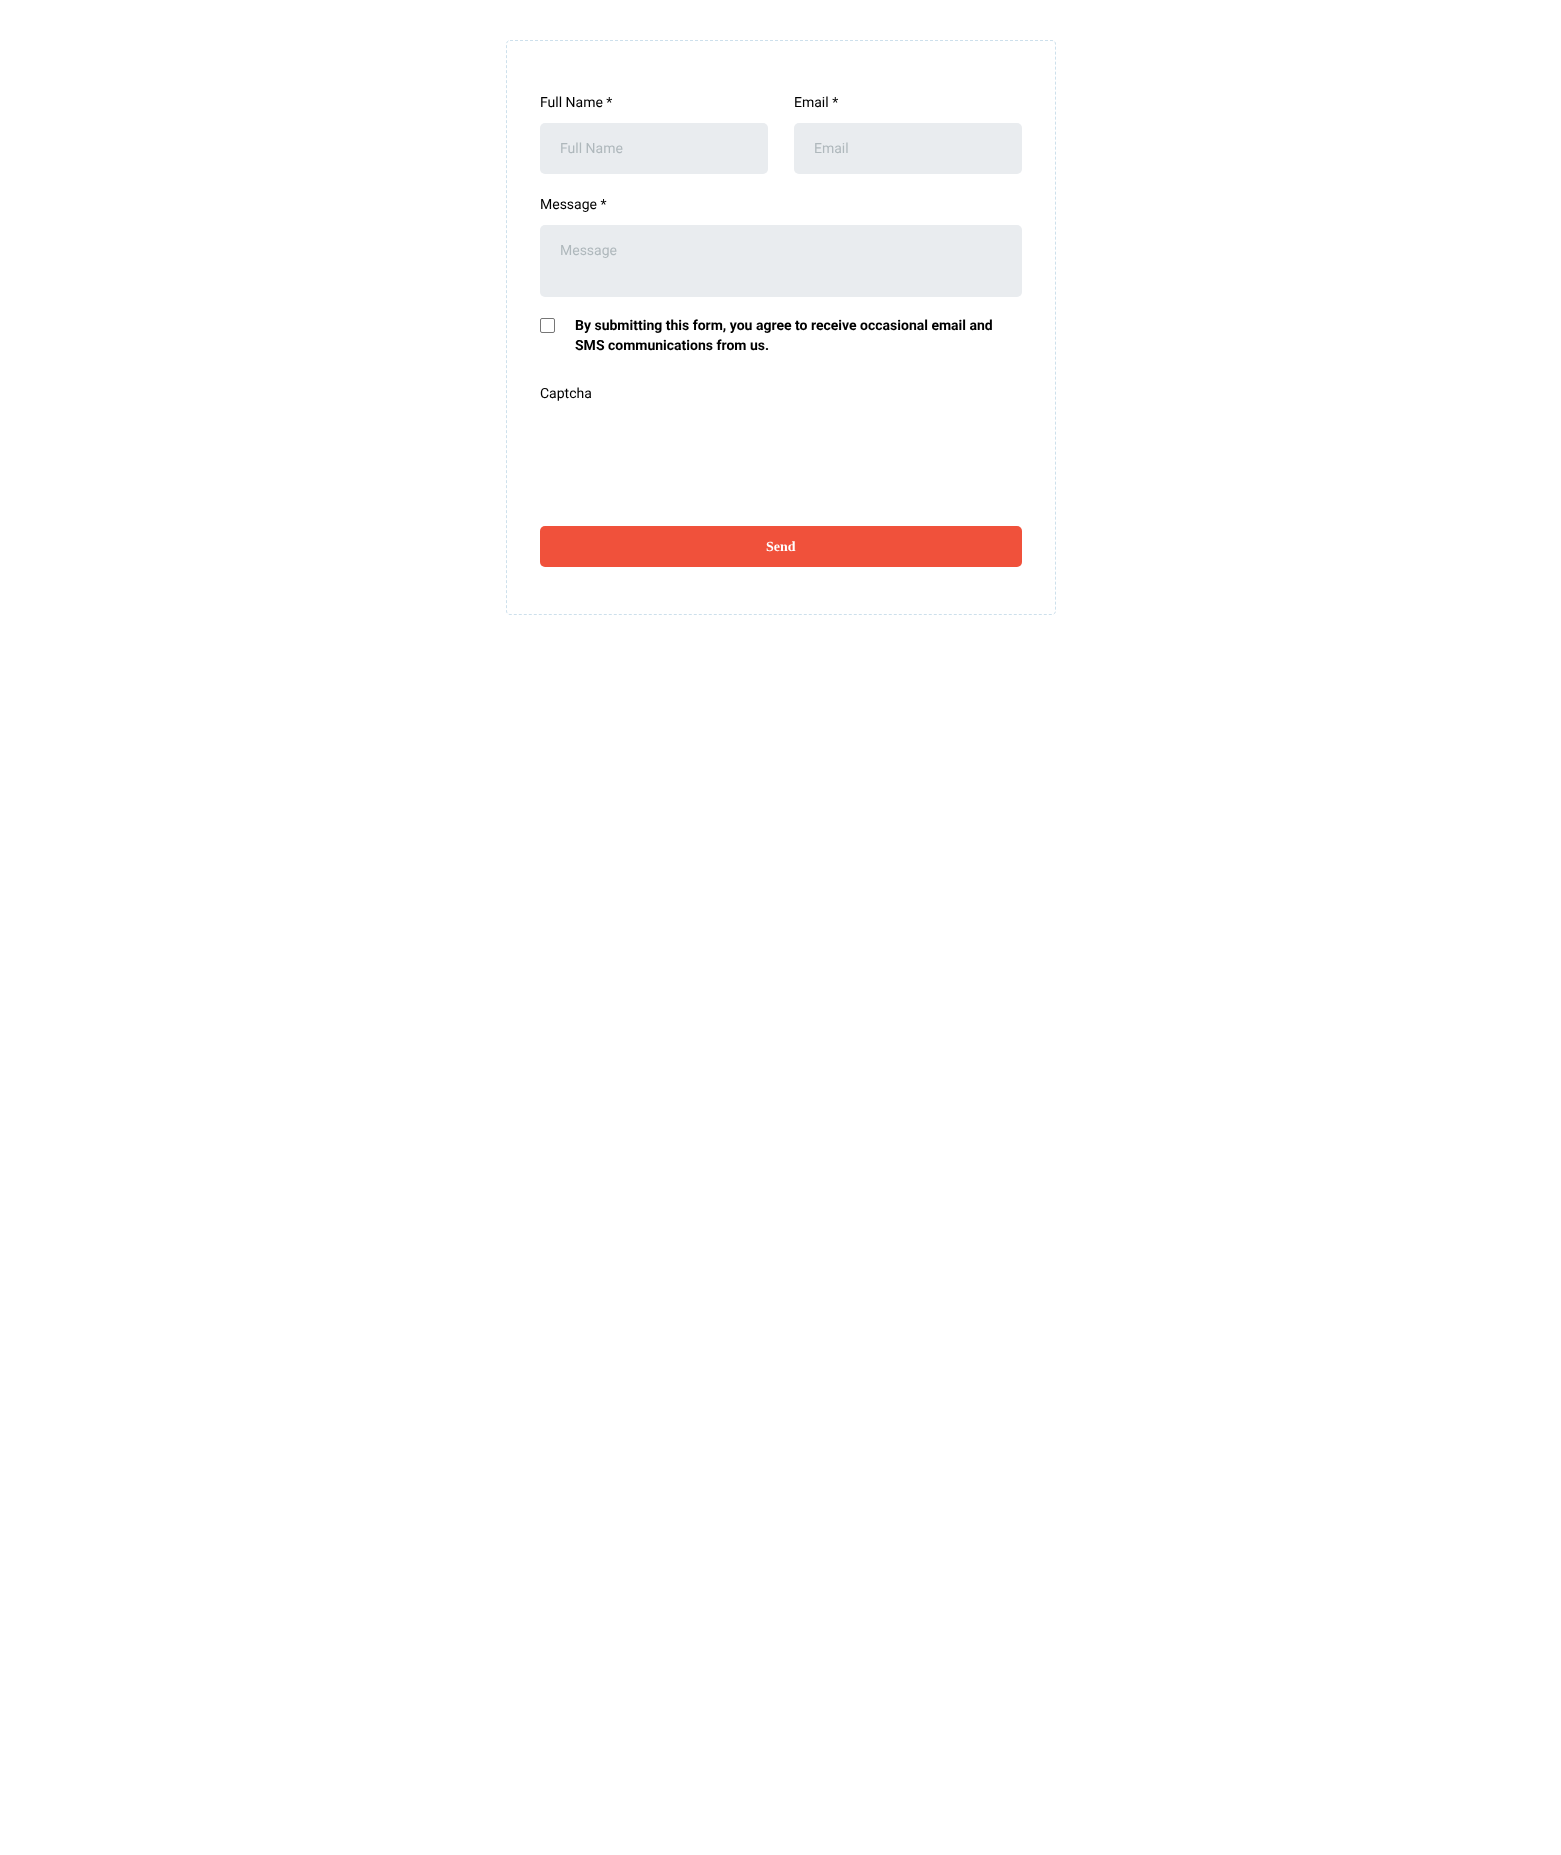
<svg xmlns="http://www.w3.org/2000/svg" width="1561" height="1855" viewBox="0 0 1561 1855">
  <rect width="100%" height="100%" fill="rgb(255,255,255)"/>
  <path d="M510 40.5H1052C1054 40.5 1055.5 42 1055.5 44V611C1055.5 613 1054 614.5 1052 614.5H510C508 614.5 506.5 613 506.5 611V44C506.5 42 508 40.5 510 40.5Z" fill="none" stroke="rgb(205,224,236)" stroke-dasharray="3 2"/>
  <text x="540" y="107" font-family="Roboto" font-size="14" fill="rgb(0,0,0)">Full Name *</text>
  <rect x="540" y="123" width="228" height="51" rx="5" fill="rgb(233,236,239)"/>
  <text x="560" y="153" font-family="Roboto" font-size="14" fill="rgb(175,184,188)">Full Name</text>
  <text x="794" y="107" font-family="Roboto" font-size="14" fill="rgb(0,0,0)">Email *</text>
  <rect x="794" y="123" width="228" height="51" rx="5" fill="rgb(233,236,239)"/>
  <text x="814" y="153" font-family="Roboto" font-size="14" fill="rgb(175,184,188)">Email</text>
  <text x="540" y="209" font-family="Roboto" font-size="14" fill="rgb(0,0,0)">Message *</text>
  <rect x="540" y="225" width="482" height="72" rx="5" fill="rgb(233,236,239)"/>
  <text x="560" y="255" font-family="Roboto" font-size="14" fill="rgb(175,184,188)">Message</text>
  <rect x="540.5" y="318.5" width="14" height="14" rx="1.5" fill="none" stroke="rgb(118,118,118)"/>
  <g font-family="Roboto" font-size="14" font-weight="bold" fill="rgb(0,0,0)">
    <text>
      <tspan x="575" y="330">By submitting this form, you agree to receive occasional email and</tspan>
      <tspan x="575" y="350">SMS communications from us.</tspan>
    </text>
  </g>
  <text x="540" y="398" font-family="Roboto" font-size="14" fill="rgb(0,0,0)">Captcha</text>
  <rect x="540" y="526" width="482" height="41" rx="5" fill="rgb(240,81,59)"/>
  <text x="766" y="551" font-family="Liberation Serif" font-size="14" font-weight="bold" fill="rgb(255,255,255)">Send</text>
</svg>
